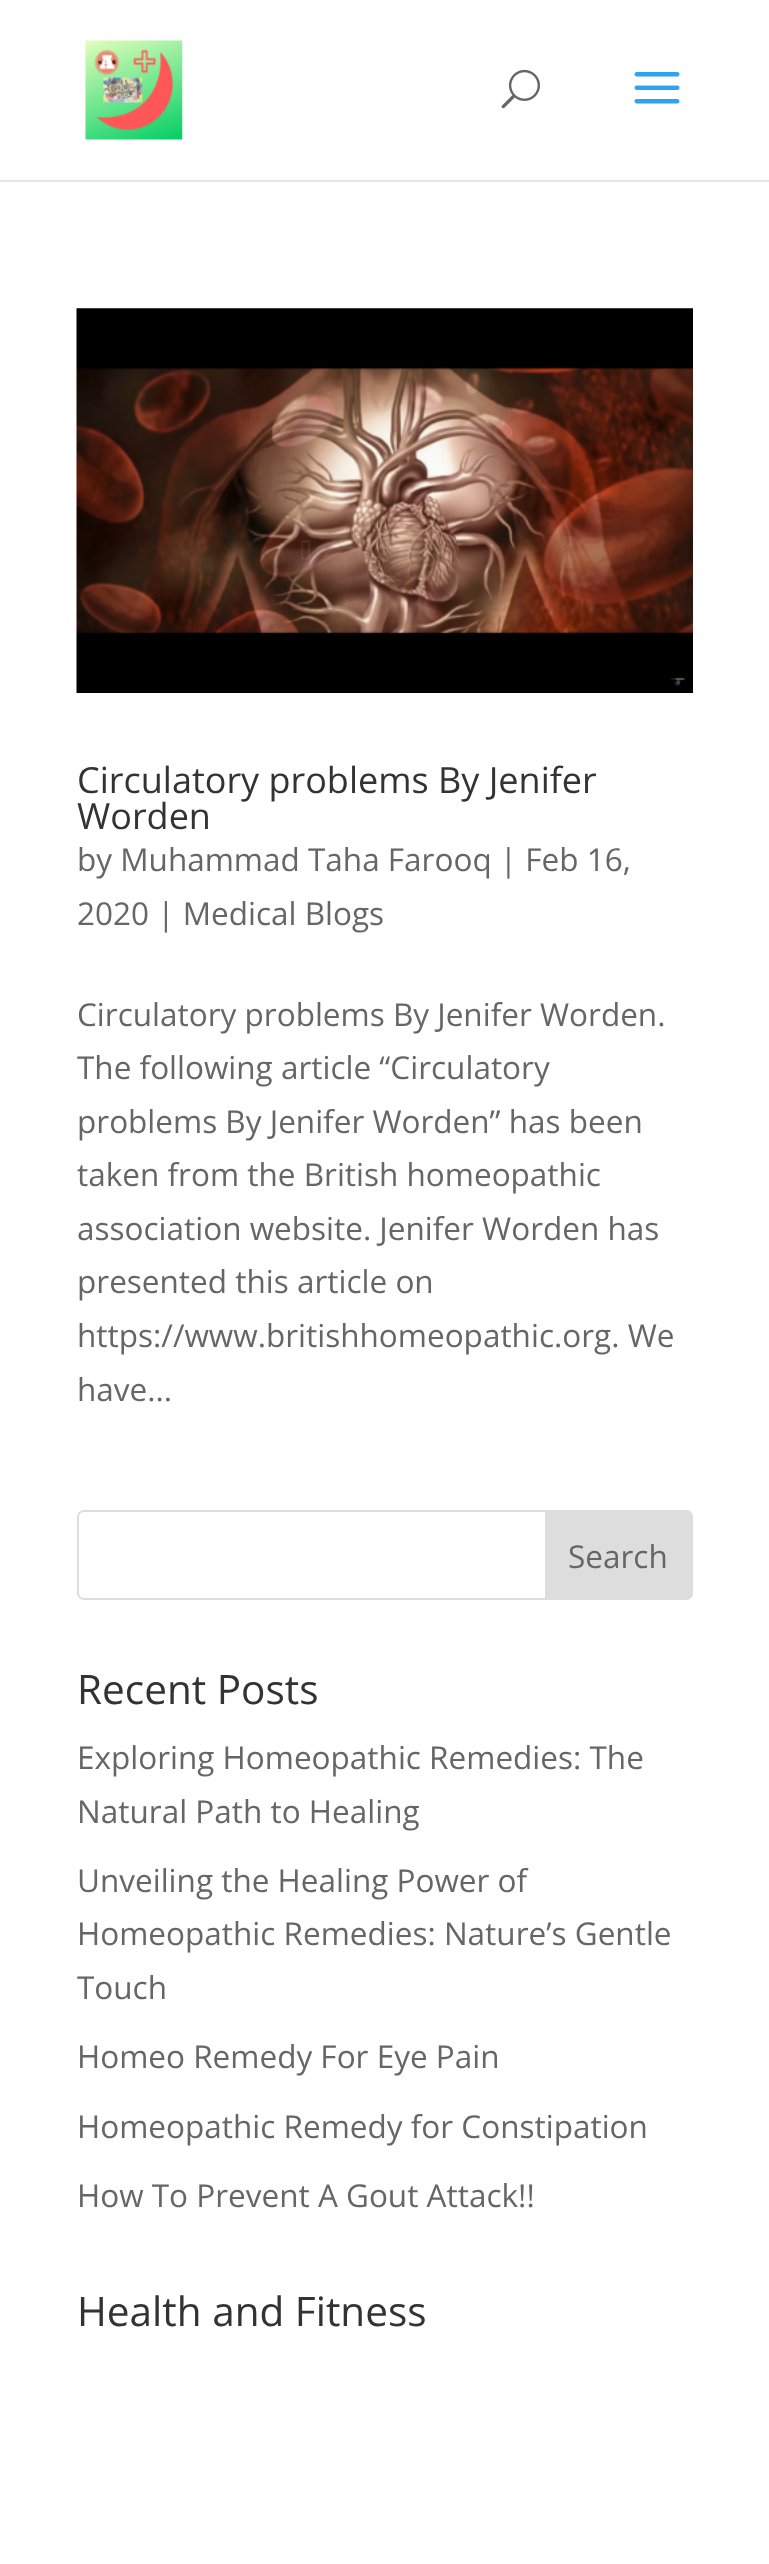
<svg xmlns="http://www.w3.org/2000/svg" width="769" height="2564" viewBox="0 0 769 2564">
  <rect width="100%" height="100%" fill="rgb(255,255,255)"/>
  <path d="M0 180V182H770V2V180Z" fill="rgb(230,230,230)"/>
  <image x="85" y="40" width="98" height="100" href="pic1.png"/>
  <image x="501" y="69" width="39" height="40" href="pic2.png"/>
  <image x="634" y="72" width="46" height="32" href="pic3.png"/>
  <image x="76" y="308" width="617" height="385" href="pic4.png"/>
  <g font-family="Open Sans" font-size="36" fill="rgb(51,51,51)">
    <text>
      <tspan x="77" y="793">Circulatory problems By Jenifer</tspan>
      <tspan x="77" y="829">Worden</tspan>
    </text>
  </g>
  <g font-family="Open Sans" font-size="31.5" fill="rgb(102,102,102)">
    <text>
      <tspan x="77" y="871">by Muhammad Taha Farooq | Feb 16,</tspan>
      <tspan x="77" y="925">2020 | Medical Blogs</tspan>
    </text>
    <text>
      <tspan x="77" y="1026">Circulatory problems By Jenifer Worden.</tspan>
      <tspan x="77" y="1079">The following article “Circulatory</tspan>
      <tspan x="77" y="1133">problems By Jenifer Worden” has been</tspan>
      <tspan x="77" y="1186">taken from the British homeopathic</tspan>
      <tspan x="77" y="1240">association website. Jenifer Worden has</tspan>
      <tspan x="77" y="1293">presented this article on</tspan>
      <tspan x="77" y="1347">https://www.britishhomeopathic.org. We</tspan>
      <tspan x="77" y="1401">have...</tspan>
    </text>
  </g>
  <rect x="78" y="1511" width="614" height="88" rx="6" fill="none" stroke="rgb(221,221,221)" stroke-width="2"/>
  <path d="M546 1511H686C689.5 1511 692 1513.5 692 1517V1593C692 1596.5 689.5 1599 686 1599H546Z" fill="rgb(221,221,221)" stroke="rgb(221,221,221)" stroke-width="2"/>
  <text x="568" y="1568" font-family="Open Sans" font-size="31.5" fill="rgb(102,102,102)">Search</text>
  <text x="77" y="1704" font-family="Open Sans" font-size="40.5" fill="rgb(51,51,51)">Recent Posts</text>
  <g font-family="Open Sans" font-size="31.5" fill="rgb(102,102,102)">
    <text>
      <tspan x="77" y="1769">Exploring Homeopathic Remedies: The</tspan>
      <tspan x="77" y="1823">Natural Path to Healing</tspan>
    </text>
    <text>
      <tspan x="77" y="1892">Unveiling the Healing Power of</tspan>
      <tspan x="77" y="1945">Homeopathic Remedies: Nature’s Gentle</tspan>
      <tspan x="77" y="1999">Touch</tspan>
    </text>
    <text x="77" y="2068">Homeo Remedy For Eye Pain</text>
    <text x="77" y="2138">Homeopathic Remedy for Constipation</text>
    <text x="77" y="2207">How To Prevent A Gout Attack!!</text>
  </g>
  <text x="77" y="2326" font-family="Open Sans" font-size="40.5" fill="rgb(51,51,51)">Health and Fitness</text>
</svg>
